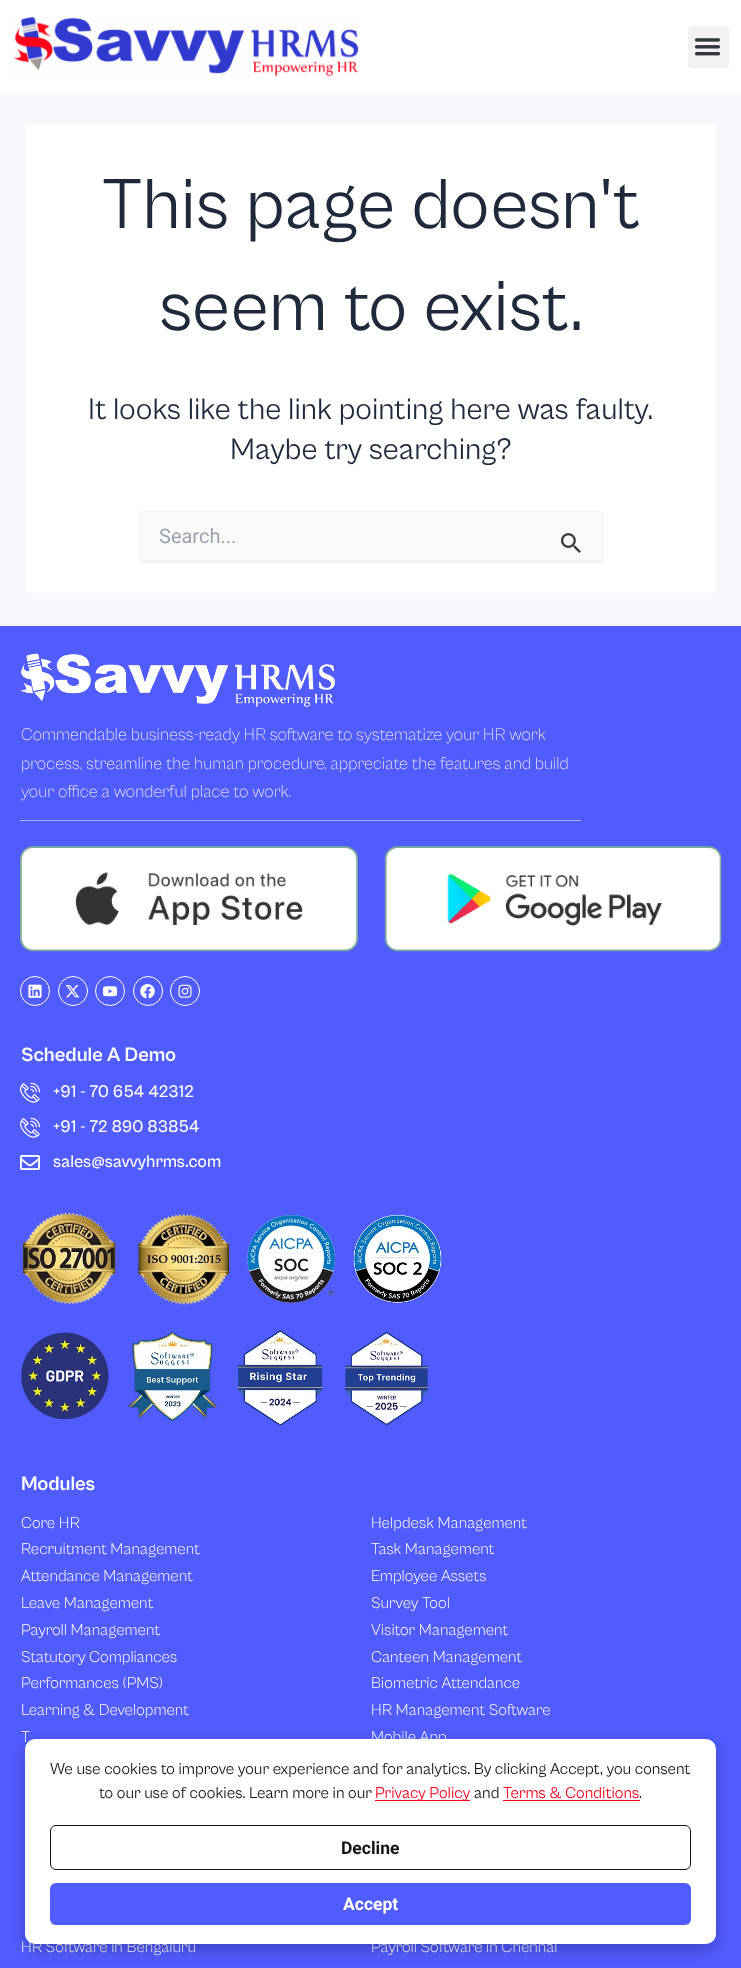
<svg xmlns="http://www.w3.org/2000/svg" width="741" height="1968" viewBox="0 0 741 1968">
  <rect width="100%" height="100%" fill="rgb(249,246,254)"/>
  <rect x="0" y="0" width="741" height="94" fill="rgb(255,255,255)"/>
  <image x="14" y="17" width="345" height="60" href="pic1.png"/>
  <rect x="688" y="26" width="41" height="42" rx="4" fill="rgb(242,242,242)"/>
  <image x="694" y="38" width="27" height="18" href="pic2.png"/>
  <rect x="25" y="124" width="691" height="469" fill="rgb(255,255,255)"/>
  <g font-family="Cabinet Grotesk" font-size="73" fill="rgb(30,41,59)">
    <text x="102" y="228">This page doesn't</text>
    <text x="159" y="330">seem to exist.</text>
  </g>
  <g font-family="Cabinet Grotesk" font-size="30.75" fill="rgb(30,41,59)">
    <text x="88" y="419">It looks like the link pointing here was faulty.</text>
    <text x="230" y="459">Maybe try searching?</text>
  </g>
  <rect x="140" y="513" width="463" height="50" rx="2.5" fill="rgba(0,0,0,0.05)" filter="blur(1px)"/>
  <rect x="140.5" y="511.5" width="462" height="49" rx="2" fill="rgb(250,250,250)" stroke="rgb(242,245,247)"/>
  <text x="159" y="543" font-family="Roboto" font-size="20" fill="rgb(156,163,175)">Search...</text>
  <image x="561" y="533" width="20" height="20" href="pic3.png"/>
  <rect x="0" y="626" width="741" height="1342" fill="rgb(81,92,255)"/>
  <image x="20" y="653" width="315" height="54" href="pic4.png"/>
  <rect x="20" y="820" width="561" height="1" fill="rgb(168,174,255)"/>
  <g font-family="Cabinet Grotesk" font-size="17.5" font-weight="200" fill="rgb(255,255,255)">
    <text>
      <tspan x="21" y="740">Commendable business-ready HR software to systematize your HR work</tspan>
      <tspan x="21" y="769">process, streamline the human procedure, appreciate the features and build</tspan>
      <tspan x="21" y="797">your office a wonderful place to work.</tspan>
    </text>
  </g>
  <image x="20" y="846" width="339" height="106" href="pic5.png"/>
  <image x="384" y="846" width="338" height="106" href="pic6.png"/>
  <circle cx="35" cy="991" r="14.5" fill="none" stroke="rgb(255,255,255)"/>
  <image x="28" y="984" width="14" height="14" href="pic7.png"/>
  <circle cx="73" cy="991" r="14.5" fill="none" stroke="rgb(255,255,255)"/>
  <image x="65" y="985" width="15" height="13" href="pic8.png"/>
  <circle cx="110" cy="991" r="14.5" fill="none" stroke="rgb(255,255,255)"/>
  <image x="103" y="986" width="15" height="11" href="pic9.png"/>
  <circle cx="148" cy="991" r="14.5" fill="none" stroke="rgb(255,255,255)"/>
  <image x="140" y="984" width="15" height="15" href="pic10.png"/>
  <circle cx="185" cy="991" r="14.5" fill="none" stroke="rgb(255,255,255)"/>
  <image x="178" y="984" width="14" height="14" href="pic11.png"/>
  <text x="21" y="1061" font-family="Cabinet Grotesk" font-size="20" font-weight="bold" fill="rgb(255,255,255)">Schedule A Demo</text>
  <image x="20" y="1082" width="20" height="21" href="pic12.png"/>
  <text x="53" y="1097" font-family="Cabinet Grotesk" font-size="17.5" font-weight="500" fill="rgb(255,255,255)">+91 - 70 654 42312</text>
  <image x="20" y="1117" width="20" height="21" href="pic12.png"/>
  <text x="53" y="1132" font-family="Cabinet Grotesk" font-size="17.5" font-weight="500" fill="rgb(255,255,255)">+91 - 72 890 83854</text>
  <image x="20" y="1155" width="20" height="15" href="pic13.png"/>
  <text x="53" y="1167" font-family="Cabinet Grotesk" font-size="17.5" font-weight="500" fill="rgb(255,255,255)">sales@savvyhrms.com</text>
  <image x="22" y="1212" width="420" height="93" href="pic14.png"/>
  <image x="21" y="1330" width="407" height="96" href="pic15.png"/>
  <text x="21" y="1490" font-family="Cabinet Grotesk" font-size="20" font-weight="bold" fill="rgb(255,255,255)">Modules</text>
  <g font-family="Cabinet Grotesk" font-size="16.25" font-weight="300" fill="rgb(255,255,255)">
    <text>
      <tspan x="21" y="1528">Core HR</tspan>
      <tspan x="21" y="1554">Recruitment Management</tspan>
      <tspan x="21" y="1581">Attendance Management</tspan>
      <tspan x="21" y="1608">Leave Management</tspan>
      <tspan x="21" y="1635">Payroll Management</tspan>
      <tspan x="21" y="1662">Statutory Compliances</tspan>
      <tspan x="21" y="1688">Performances (PMS)</tspan>
      <tspan x="21" y="1715">Learning &amp; Development</tspan>
      <tspan x="21" y="1742">T</tspan>
    </text>
    <text>
      <tspan x="371" y="1528">Helpdesk Management</tspan>
      <tspan x="371" y="1554">Task Management</tspan>
      <tspan x="371" y="1581">Employee Assets</tspan>
      <tspan x="371" y="1608">Survey Tool</tspan>
      <tspan x="371" y="1635">Visitor Management</tspan>
      <tspan x="371" y="1662">Canteen Management</tspan>
      <tspan x="371" y="1688">Biometric Attendance</tspan>
      <tspan x="371" y="1715">HR Management Software</tspan>
      <tspan x="371" y="1742">Mobile App</tspan>
    </text>
    <text x="21" y="1952">HR Software in Bengaluru</text>
    <text x="371" y="1952">Payroll Software in Chennai</text>
  </g>
  <rect x="25" y="1744" width="691" height="205" rx="10" fill="rgba(0,0,0,0.25)" filter="blur(7.5px)"/>
  <rect x="25" y="1739" width="691" height="205" rx="10" fill="rgb(255,255,255)"/>
  <g font-family="Cabinet Grotesk" font-size="16.25" fill="rgb(20,20,20)">
    <text x="50" y="1774">We use cookies to improve your experience and for analytics. By clicking Accept, you consent</text>
    <text x="99" y="1798">to our use of cookies. Learn more in our</text>
  </g>
  <rect x="375" y="1800" width="95" height="1" fill="rgb(255,0,29)"/>
  <text x="375" y="1798" font-family="Cabinet Grotesk" font-size="16.25" fill="rgb(255,0,29)">Privacy Policy</text>
  <text x="474" y="1798" font-family="Cabinet Grotesk" font-size="16.25" fill="rgb(20,20,20)">and</text>
  <text x="503" y="1798" font-family="Cabinet Grotesk" font-size="16.25" fill="rgb(255,0,29)">Terms &amp; Conditions</text>
  <rect x="503" y="1800" width="137" height="1" fill="rgb(255,0,29)"/>
  <text x="639" y="1798" font-family="Cabinet Grotesk" font-size="16.25" fill="rgb(20,20,20)">.</text>
  <rect x="50.5" y="1825.5" width="640" height="44" rx="5.5" fill="none" stroke="rgb(20,20,20)"/>
  <text x="341" y="1854" font-family="Roboto" font-size="17.5" font-weight="bold" fill="rgb(20,20,20)">Decline</text>
  <rect x="50" y="1884" width="641" height="42" rx="6" fill="rgba(0,0,0,0.05)" filter="blur(1px)"/>
  <rect x="50" y="1883" width="641" height="42" rx="6" fill="rgb(81,92,255)"/>
  <text x="343" y="1910" font-family="Roboto" font-size="17.5" font-weight="bold" fill="rgb(255,255,255)">Accept</text>
</svg>
